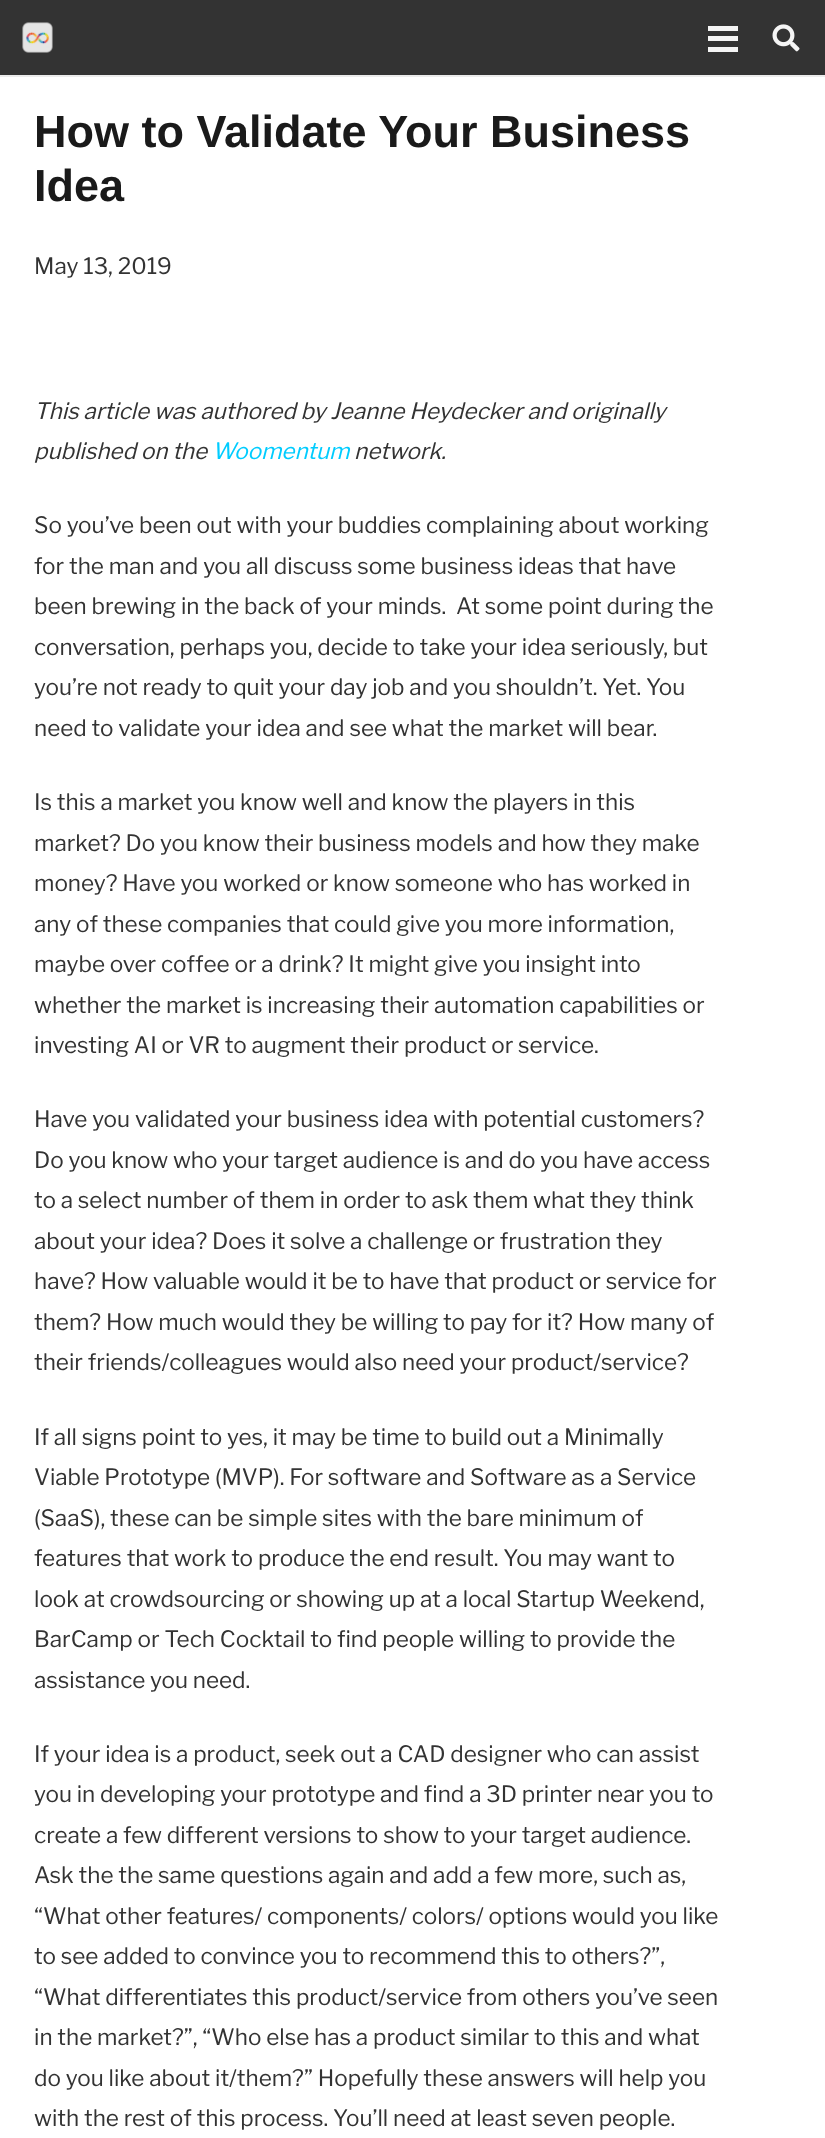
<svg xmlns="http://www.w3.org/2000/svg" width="825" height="2138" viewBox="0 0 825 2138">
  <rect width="100%" height="100%" fill="rgb(255,255,255)"/>
  <rect x="0" y="75" width="825" height="2" fill="rgb(235,235,235)"/>
  <rect x="0" y="0" width="825" height="75" fill="rgb(51,51,51)"/>
  <image x="22" y="22" width="31" height="31" href="pic1.png"/>
  <rect x="708" y="36" width="30" height="5" fill="rgb(245,245,245)"/>
  <rect x="708" y="26" width="30" height="5" fill="rgb(245,245,245)"/>
  <rect x="708" y="47" width="30" height="5" fill="rgb(245,245,245)"/>
  <image x="772" y="24" width="28" height="28" href="pic2.png"/>
  <g font-family="Liberation Sans" font-size="45" font-weight="bold" fill="rgb(26,26,26)">
    <text>
      <tspan x="34" y="147">How to Validate Your Business</tspan>
      <tspan x="34" y="201">Idea</tspan>
    </text>
  </g>
  <text x="34" y="274" font-family="Libre Franklin" font-size="22.5" fill="rgb(51,51,51)">May 13, 2019</text>
  <g font-family="Libre Franklin" font-size="22.5" font-style="italic" fill="rgb(51,51,51)">
    <text>
      <tspan x="34" y="419">This article was authored by Jeanne Heydecker and originally</tspan>
      <tspan x="34" y="459">published on the</tspan>
    </text>
  </g>
  <text x="212" y="459" font-family="Libre Franklin" font-size="22.5" font-style="italic" fill="rgb(0,204,255)">Woomentum</text>
  <text x="354" y="459" font-family="Libre Franklin" font-size="22.5" font-style="italic" fill="rgb(51,51,51)">network.</text>
  <g font-family="Libre Franklin" font-size="22.5" fill="rgb(51,51,51)">
    <text xml:space="preserve"><tspan x="34" y="533">So you’ve been out with your buddies complaining about working</tspan><tspan x="34" y="574">for the man and you all discuss some business ideas that have</tspan><tspan x="34" y="614">been brewing in the back of your minds.  At some point during the</tspan><tspan x="34" y="655">conversation, perhaps you, decide to take your idea seriously, but</tspan><tspan x="34" y="695">you’re not ready to quit your day job and you shouldn’t. Yet. You</tspan><tspan x="34" y="736">need to validate your idea and see what the market will bear.</tspan></text>
    <text>
      <tspan x="34" y="810">Is this a market you know well and know the players in this</tspan>
      <tspan x="34" y="851">market? Do you know their business models and how they make</tspan>
      <tspan x="34" y="891">money? Have you worked or know someone who has worked in</tspan>
      <tspan x="34" y="932">any of these companies that could give you more information,</tspan>
      <tspan x="34" y="972">maybe over coffee or a drink? It might give you insight into</tspan>
      <tspan x="34" y="1013">whether the market is increasing their automation capabilities or</tspan>
      <tspan x="34" y="1053">investing AI or VR to augment their product or service.</tspan>
    </text>
    <text>
      <tspan x="34" y="1127">Have you validated your business idea with potential customers?</tspan>
      <tspan x="34" y="1168">Do you know who your target audience is and do you have access</tspan>
      <tspan x="34" y="1208">to a select number of them in order to ask them what they think</tspan>
      <tspan x="34" y="1249">about your idea? Does it solve a challenge or frustration they</tspan>
      <tspan x="34" y="1289">have? How valuable would it be to have that product or service for</tspan>
      <tspan x="34" y="1330">them? How much would they be willing to pay for it? How many of</tspan>
      <tspan x="34" y="1370">their friends/colleagues would also need your product/service?</tspan>
    </text>
    <text>
      <tspan x="34" y="1445">If all signs point to yes, it may be time to build out a Minimally</tspan>
      <tspan x="34" y="1485">Viable Prototype (MVP). For software and Software as a Service</tspan>
      <tspan x="34" y="1526">(SaaS), these can be simple sites with the bare minimum of</tspan>
      <tspan x="34" y="1566">features that work to produce the end result. You may want to</tspan>
      <tspan x="34" y="1607">look at crowdsourcing or showing up at a local Startup Weekend,</tspan>
      <tspan x="34" y="1647">BarCamp or Tech Cocktail to find people willing to provide the</tspan>
      <tspan x="34" y="1688">assistance you need.</tspan>
    </text>
    <text>
      <tspan x="34" y="1762">If your idea is a product, seek out a CAD designer who can assist</tspan>
      <tspan x="34" y="1802">you in developing your prototype and find a 3D printer near you to</tspan>
      <tspan x="34" y="1843">create a few different versions to show to your target audience.</tspan>
      <tspan x="34" y="1883">Ask the the same questions again and add a few more, such as,</tspan>
      <tspan x="34" y="1924">“What other features/ components/ colors/ options would you like</tspan>
      <tspan x="34" y="1964">to see added to convince you to recommend this to others?”,</tspan>
      <tspan x="34" y="2005">“What differentiates this product/service from others you’ve seen</tspan>
      <tspan x="34" y="2045">in the market?”, “Who else has a product similar to this and what</tspan>
      <tspan x="34" y="2086">do you like about it/them?” Hopefully these answers will help you</tspan>
      <tspan x="34" y="2126">with the rest of this process. You’ll need at least seven people.</tspan>
    </text>
  </g>
</svg>
